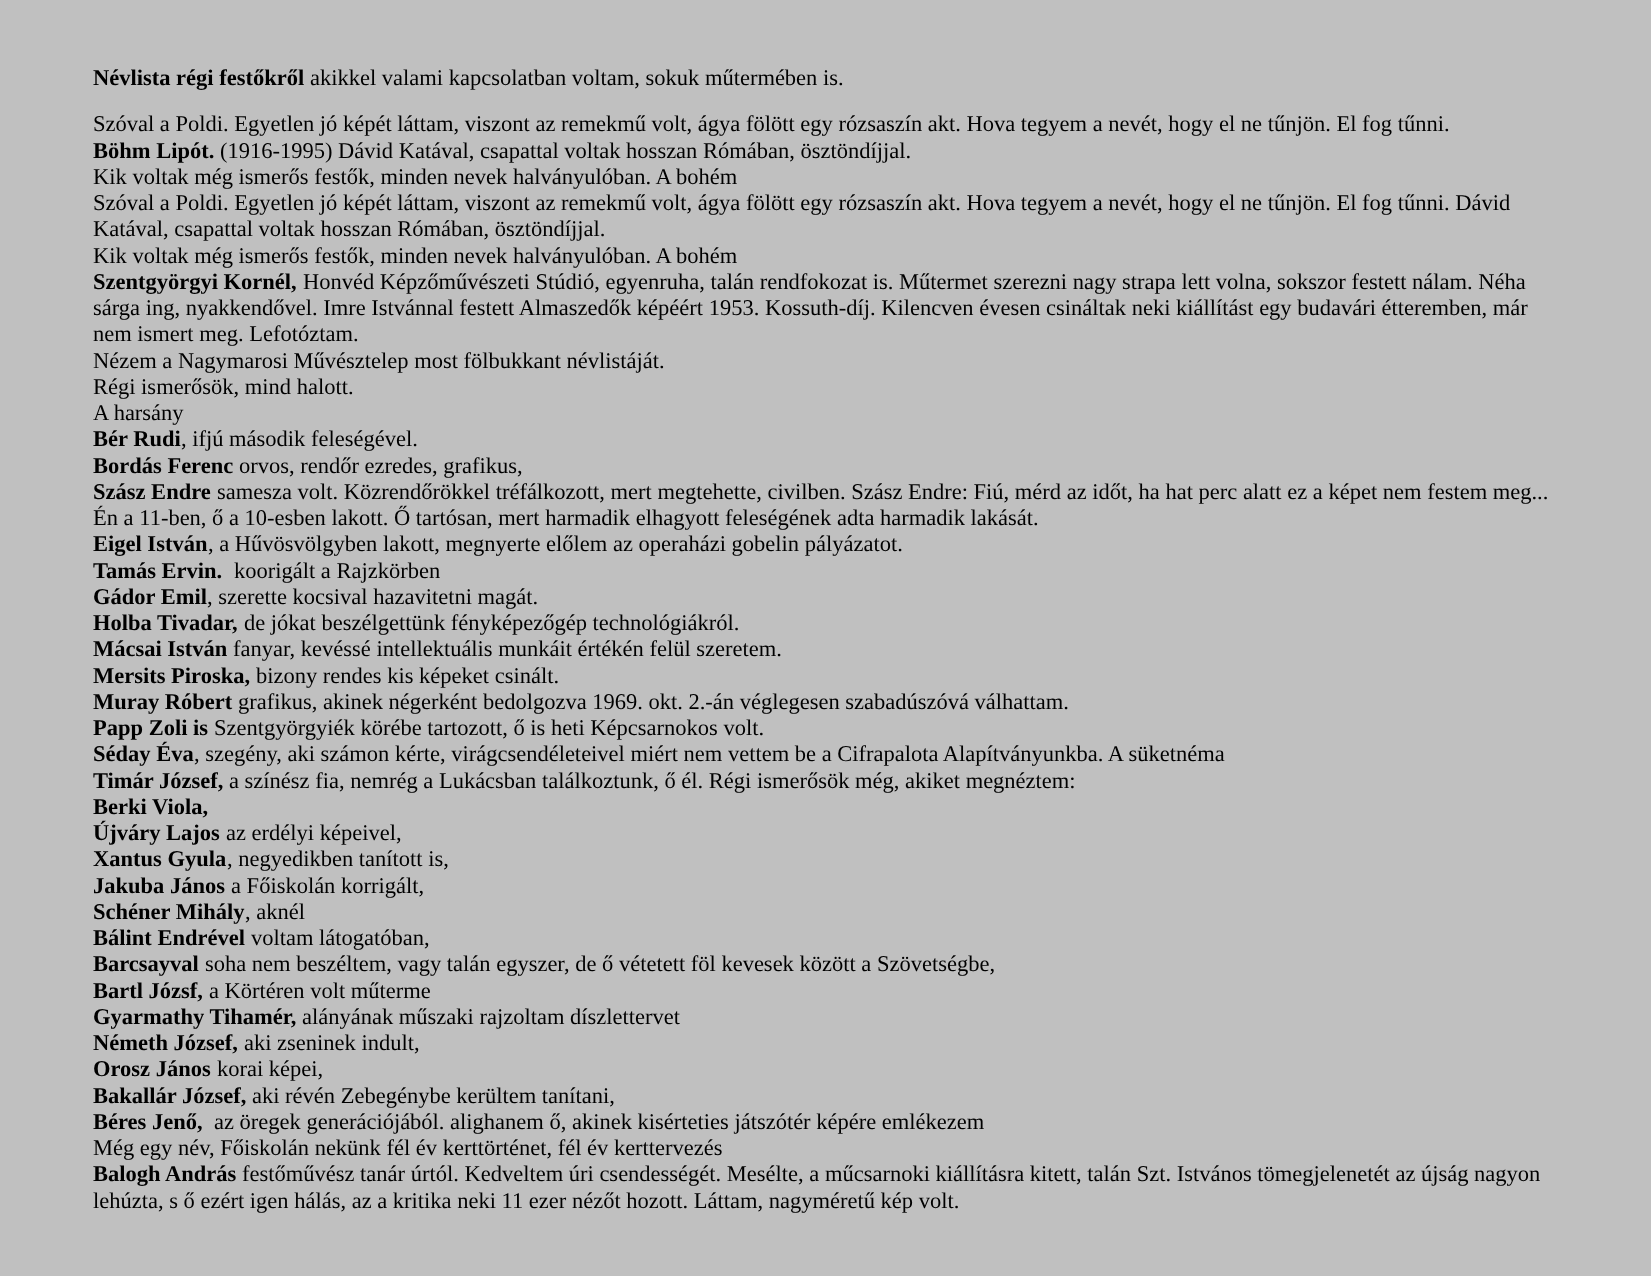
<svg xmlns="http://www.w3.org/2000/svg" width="1651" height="1276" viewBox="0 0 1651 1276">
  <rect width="100%" height="100%" fill="rgb(192,192,192)"/>
  <text x="93" y="85" font-family="Liberation Serif" font-size="22.5" font-weight="bold" fill="rgb(0,0,0)">Névlista régi festőkről</text>
  <g font-family="Liberation Serif" font-size="22.5" fill="rgb(0,0,0)">
    <text x="310" y="85">akikkel valami kapcsolatban voltam, sokuk műtermében is.</text>
    <text x="93" y="131">Szóval a Poldi. Egyetlen jó képét láttam, viszont az remekmű volt, ágya fölött egy rózsaszín akt. Hova tegyem a nevét, hogy el ne tűnjön. El fog tűnni.</text>
  </g>
  <text x="93" y="158" font-family="Liberation Serif" font-size="22.5" font-weight="bold" fill="rgb(0,0,0)">Böhm Lipót.</text>
  <g font-family="Liberation Serif" font-size="22.5" fill="rgb(0,0,0)">
    <text x="220" y="158">(1916-1995) Dávid Katával, csapattal voltak hosszan Rómában, ösztöndíjjal.</text>
    <text>
      <tspan x="93" y="184">Kik voltak még ismerős festők, minden nevek halványulóban. A bohém</tspan>
      <tspan x="93" y="210">Szóval a Poldi. Egyetlen jó képét láttam, viszont az remekmű volt, ágya fölött egy rózsaszín akt. Hova tegyem a nevét, hogy el ne tűnjön. El fog tűnni. Dávid</tspan>
      <tspan x="93" y="236">Katával, csapattal voltak hosszan Rómában, ösztöndíjjal.</tspan>
      <tspan x="93" y="263">Kik voltak még ismerős festők, minden nevek halványulóban. A bohém</tspan>
    </text>
  </g>
  <text x="93" y="289" font-family="Liberation Serif" font-size="22.5" font-weight="bold" fill="rgb(0,0,0)">Szentgyörgyi Kornél,</text>
  <g font-family="Liberation Serif" font-size="22.5" fill="rgb(0,0,0)">
    <text x="303" y="289">Honvéd Képzőművészeti Stúdió, egyenruha, talán rendfokozat is. Műtermet szerezni nagy strapa lett volna, sokszor festett nálam. Néha</text>
    <text>
      <tspan x="93" y="315">sárga ing, nyakkendővel. Imre Istvánnal festett Almaszedők képéért 1953. Kossuth-díj. Kilencven évesen csináltak neki kiállítást egy budavári étteremben, már</tspan>
      <tspan x="93" y="341">nem ismert meg. Lefotóztam.</tspan>
      <tspan x="93" y="368">Nézem a Nagymarosi Művésztelep most fölbukkant névlistáját.</tspan>
      <tspan x="93" y="394">Régi ismerősök, mind halott.</tspan>
      <tspan x="93" y="420">A harsány</tspan>
    </text>
  </g>
  <text x="93" y="446" font-family="Liberation Serif" font-size="22.5" font-weight="bold" fill="rgb(0,0,0)">Bér Rudi</text>
  <text x="181" y="446" font-family="Liberation Serif" font-size="22.5" fill="rgb(0,0,0)">, ifjú második feleségével.</text>
  <text x="93" y="473" font-family="Liberation Serif" font-size="22.5" font-weight="bold" fill="rgb(0,0,0)">Bordás Ferenc</text>
  <text x="239" y="473" font-family="Liberation Serif" font-size="22.5" fill="rgb(0,0,0)">orvos, rendőr ezredes, grafikus,</text>
  <text x="93" y="499" font-family="Liberation Serif" font-size="22.5" font-weight="bold" fill="rgb(0,0,0)">Szász Endre</text>
  <g font-family="Liberation Serif" font-size="22.5" fill="rgb(0,0,0)">
    <text x="217" y="499">samesza volt. Közrendőrökkel tréfálkozott, mert megtehette, civilben. Szász Endre: Fiú, mérd az időt, ha hat perc alatt ez a képet nem festem meg...</text>
    <text x="93" y="525">Én a 11-ben, ő a 10-esben lakott. Ő tartósan, mert harmadik elhagyott feleségének adta harmadik lakását.</text>
  </g>
  <text x="93" y="551" font-family="Liberation Serif" font-size="22.5" font-weight="bold" fill="rgb(0,0,0)">Eigel István</text>
  <text x="208" y="551" font-family="Liberation Serif" font-size="22.5" fill="rgb(0,0,0)">, a Hűvösvölgyben lakott, megnyerte előlem az operaházi gobelin pályázatot.</text>
  <text x="93" y="578" font-family="Liberation Serif" font-size="22.5" font-weight="bold" fill="rgb(0,0,0)">Tamás Ervin.</text>
  <text x="234" y="578" font-family="Liberation Serif" font-size="22.5" fill="rgb(0,0,0)">koorigált a Rajzkörben</text>
  <text x="93" y="604" font-family="Liberation Serif" font-size="22.5" font-weight="bold" fill="rgb(0,0,0)">Gádor Emil</text>
  <text x="207" y="604" font-family="Liberation Serif" font-size="22.5" fill="rgb(0,0,0)">, szerette kocsival hazavitetni magát.</text>
  <text x="93" y="630" font-family="Liberation Serif" font-size="22.5" font-weight="bold" fill="rgb(0,0,0)">Holba Tivadar,</text>
  <text x="244" y="630" font-family="Liberation Serif" font-size="22.5" fill="rgb(0,0,0)">de jókat beszélgettünk fényképezőgép technológiákról.</text>
  <text x="93" y="656" font-family="Liberation Serif" font-size="22.5" font-weight="bold" fill="rgb(0,0,0)">Mácsai István</text>
  <text x="233" y="656" font-family="Liberation Serif" font-size="22.5" fill="rgb(0,0,0)">fanyar, kevéssé intellektuális munkáit értékén felül szeretem.</text>
  <text x="93" y="683" font-family="Liberation Serif" font-size="22.5" font-weight="bold" fill="rgb(0,0,0)">Mersits Piroska,</text>
  <text x="256" y="683" font-family="Liberation Serif" font-size="22.5" fill="rgb(0,0,0)">bizony rendes kis képeket csinált.</text>
  <text x="93" y="709" font-family="Liberation Serif" font-size="22.5" font-weight="bold" fill="rgb(0,0,0)">Muray Róbert</text>
  <text x="238" y="709" font-family="Liberation Serif" font-size="22.5" fill="rgb(0,0,0)">grafikus, akinek négerként bedolgozva 1969. okt. 2.-án véglegesen szabadúszóvá válhattam.</text>
  <text x="93" y="735" font-family="Liberation Serif" font-size="22.5" font-weight="bold" fill="rgb(0,0,0)">Papp Zoli is</text>
  <text x="214" y="735" font-family="Liberation Serif" font-size="22.5" fill="rgb(0,0,0)">Szentgyörgyiék körébe tartozott, ő is heti Képcsarnokos volt.</text>
  <text x="93" y="761" font-family="Liberation Serif" font-size="22.5" font-weight="bold" fill="rgb(0,0,0)">Séday Éva</text>
  <text x="194" y="761" font-family="Liberation Serif" font-size="22.5" fill="rgb(0,0,0)">, szegény, aki számon kérte, virágcsendéleteivel miért nem vettem be a Cifrapalota Alapítványunkba. A süketnéma</text>
  <text x="93" y="788" font-family="Liberation Serif" font-size="22.5" font-weight="bold" fill="rgb(0,0,0)">Timár József,</text>
  <text x="229" y="788" font-family="Liberation Serif" font-size="22.5" fill="rgb(0,0,0)">a színész fia, nemrég a Lukácsban találkoztunk, ő él. Régi ismerősök még, akiket megnéztem:</text>
  <g font-family="Liberation Serif" font-size="22.5" font-weight="bold" fill="rgb(0,0,0)">
    <text>
      <tspan x="93" y="814">Berki Viola,</tspan>
      <tspan x="93" y="840">Újváry Lajos</tspan>
    </text>
  </g>
  <text x="226" y="840" font-family="Liberation Serif" font-size="22.5" fill="rgb(0,0,0)">az erdélyi képeivel,</text>
  <text x="93" y="866" font-family="Liberation Serif" font-size="22.5" font-weight="bold" fill="rgb(0,0,0)">Xantus Gyula</text>
  <text x="227" y="866" font-family="Liberation Serif" font-size="22.5" fill="rgb(0,0,0)">, negyedikben tanított is,</text>
  <text x="93" y="893" font-family="Liberation Serif" font-size="22.5" font-weight="bold" fill="rgb(0,0,0)">Jakuba János</text>
  <text x="231" y="893" font-family="Liberation Serif" font-size="22.5" fill="rgb(0,0,0)">a Főiskolán korrigált,</text>
  <text x="93" y="919" font-family="Liberation Serif" font-size="22.5" font-weight="bold" fill="rgb(0,0,0)">Schéner Mihály</text>
  <text x="245" y="919" font-family="Liberation Serif" font-size="22.5" fill="rgb(0,0,0)">, aknél</text>
  <text x="93" y="945" font-family="Liberation Serif" font-size="22.5" font-weight="bold" fill="rgb(0,0,0)">Bálint Endrével</text>
  <text x="251" y="945" font-family="Liberation Serif" font-size="22.5" fill="rgb(0,0,0)">voltam látogatóban,</text>
  <text x="93" y="971" font-family="Liberation Serif" font-size="22.5" font-weight="bold" fill="rgb(0,0,0)">Barcsayval</text>
  <text x="205" y="971" font-family="Liberation Serif" font-size="22.5" fill="rgb(0,0,0)">soha nem beszéltem, vagy talán egyszer, de ő vétetett föl kevesek között a Szövetségbe,</text>
  <text x="93" y="998" font-family="Liberation Serif" font-size="22.5" font-weight="bold" fill="rgb(0,0,0)">Bartl Józsf,</text>
  <text x="209" y="998" font-family="Liberation Serif" font-size="22.5" fill="rgb(0,0,0)">a Körtéren volt műterme</text>
  <text x="93" y="1024" font-family="Liberation Serif" font-size="22.5" font-weight="bold" fill="rgb(0,0,0)">Gyarmathy Tihamér,</text>
  <text x="302" y="1024" font-family="Liberation Serif" font-size="22.5" fill="rgb(0,0,0)">alányának műszaki rajzoltam díszlettervet</text>
  <text x="93" y="1050" font-family="Liberation Serif" font-size="22.5" font-weight="bold" fill="rgb(0,0,0)">Németh József,</text>
  <text x="244" y="1050" font-family="Liberation Serif" font-size="22.5" fill="rgb(0,0,0)">aki zseninek indult,</text>
  <text x="93" y="1076" font-family="Liberation Serif" font-size="22.5" font-weight="bold" fill="rgb(0,0,0)">Orosz János</text>
  <text x="217" y="1076" font-family="Liberation Serif" font-size="22.5" fill="rgb(0,0,0)">korai képei,</text>
  <text x="93" y="1103" font-family="Liberation Serif" font-size="22.5" font-weight="bold" fill="rgb(0,0,0)">Bakallár József,</text>
  <text x="252" y="1103" font-family="Liberation Serif" font-size="22.5" fill="rgb(0,0,0)">aki révén Zebegénybe kerültem tanítani,</text>
  <text x="93" y="1129" font-family="Liberation Serif" font-size="22.5" font-weight="bold" fill="rgb(0,0,0)">Béres Jenő,</text>
  <g font-family="Liberation Serif" font-size="22.5" fill="rgb(0,0,0)">
    <text x="214" y="1129">az öregek generációjából. alighanem ő, akinek kisérteties játszótér képére emlékezem</text>
    <text x="93" y="1155">Még egy név, Főiskolán nekünk fél év kerttörténet, fél év kerttervezés</text>
  </g>
  <text x="93" y="1181" font-family="Liberation Serif" font-size="22.5" font-weight="bold" fill="rgb(0,0,0)">Balogh András</text>
  <g font-family="Liberation Serif" font-size="22.5" fill="rgb(0,0,0)">
    <text x="242" y="1181">festőművész tanár úrtól. Kedveltem úri csendességét. Mesélte, a műcsarnoki kiállításra kitett, talán Szt. Istvános tömegjelenetét az újság nagyon</text>
    <text x="93" y="1208">lehúzta, s ő ezért igen hálás, az a kritika neki 11 ezer nézőt hozott. Láttam, nagyméretű kép volt.</text>
  </g>
</svg>
